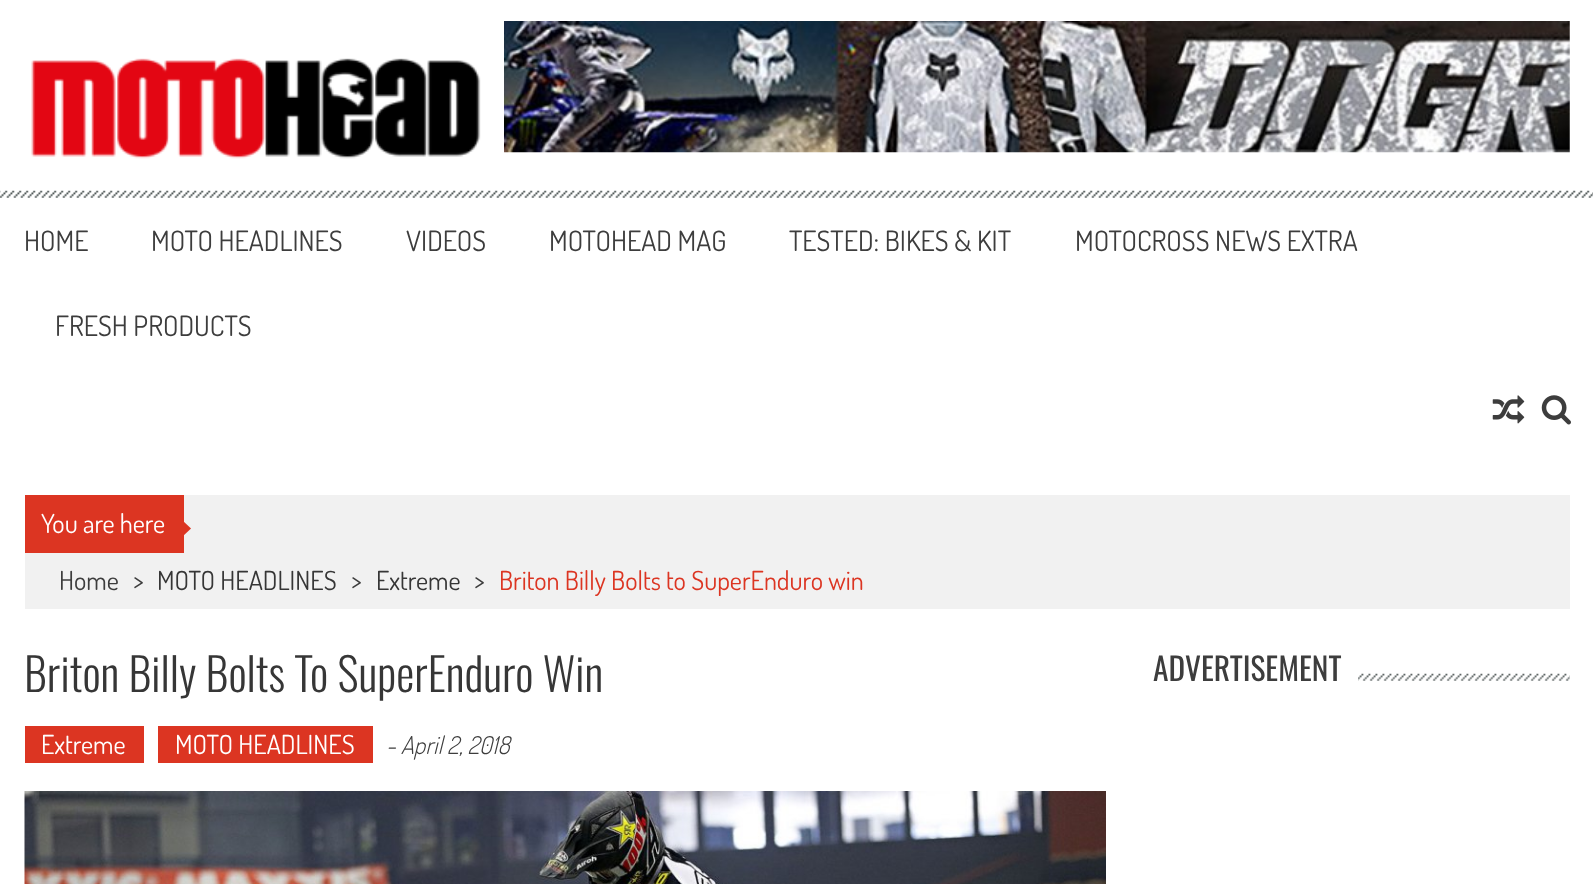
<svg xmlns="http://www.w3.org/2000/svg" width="1593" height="884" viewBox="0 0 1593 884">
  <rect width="100%" height="100%" fill="rgb(255,255,255)"/>
  <image x="0" y="190" width="1593" height="8" href="pic1.png"/>
  <image x="31" y="58" width="450" height="101" href="pic2.png"/>
  <image x="504" y="21" width="1066" height="132" href="pic3.png"/>
  <g font-family="Dosis" font-size="28" fill="rgb(61,61,61)">
    <text x="24" y="251">HOME</text>
    <text x="151" y="251">MOTO HEADLINES</text>
    <text x="406" y="251">VIDEOS</text>
    <text x="549" y="251">MOTOHEAD MAG</text>
    <text x="789" y="251">TESTED: BIKES &amp; KIT</text>
    <text x="1075" y="251">MOTOCROSS NEWS EXTRA</text>
    <text x="55" y="336">FRESH PRODUCTS</text>
  </g>
  <image x="1492" y="395" width="33" height="29" href="pic4.png"/>
  <image x="1541" y="395" width="30" height="30" href="pic5.png"/>
  <rect x="25" y="495" width="1545" height="114" fill="rgb(241,241,241)"/>
  <rect x="25" y="495" width="159" height="58" fill="rgb(220,53,34)"/>
  <text x="41" y="533" font-family="Dosis" font-size="26.25" fill="rgb(255,255,255)">You are here</text>
  <path d="M182 537V520L191 528.5Z" fill="rgb(220,53,34)"/>
  <g font-family="Dosis" font-size="26.25" fill="rgb(61,61,61)">
    <text x="59" y="590">Home</text>
    <text x="133" y="590">&gt;</text>
  </g>
  <text x="157" y="590" font-family="Dosis" font-size="26.25" fill="rgb(54,54,54)">MOTO HEADLINES</text>
  <text x="351" y="590" font-family="Dosis" font-size="26.25" fill="rgb(61,61,61)">&gt;</text>
  <text x="376" y="590" font-family="Dosis" font-size="26.25" fill="rgb(54,54,54)">Extreme</text>
  <text x="474" y="590" font-family="Dosis" font-size="26.25" fill="rgb(61,61,61)">&gt;</text>
  <text x="499" y="590" font-family="Dosis" font-size="26.25" fill="rgb(220,53,34)">Briton Billy Bolts to SuperEnduro win</text>
  <text x="24" y="692" font-family="Oswald" font-size="45.5" font-weight="300" fill="rgb(54,54,54)">Briton Billy Bolts To SuperEnduro Win</text>
  <rect x="25" y="726" width="119" height="37" fill="rgb(220,53,34)"/>
  <text x="41" y="754" font-family="Dosis" font-size="26.25" fill="rgb(255,255,255)">Extreme</text>
  <rect x="158" y="726" width="215" height="37" fill="rgb(220,53,34)"/>
  <text x="175" y="754" font-family="Dosis" font-size="26.25" fill="rgb(255,255,255)">MOTO HEADLINES</text>
  <text x="386" y="754" font-family="Dosis" font-size="24.5" font-weight="300" font-style="italic" fill="rgb(61,61,61)">- April 2, 2018</text>
  <image x="24" y="791" width="1082" height="93" href="pic6.png"/>
  <image x="1358" y="673" width="212" height="8" href="pic7.png"/>
  <text x="1153" y="681" font-family="Oswald" font-size="31.5" fill="rgb(61,61,61)">ADVERTISEMENT</text>
</svg>
